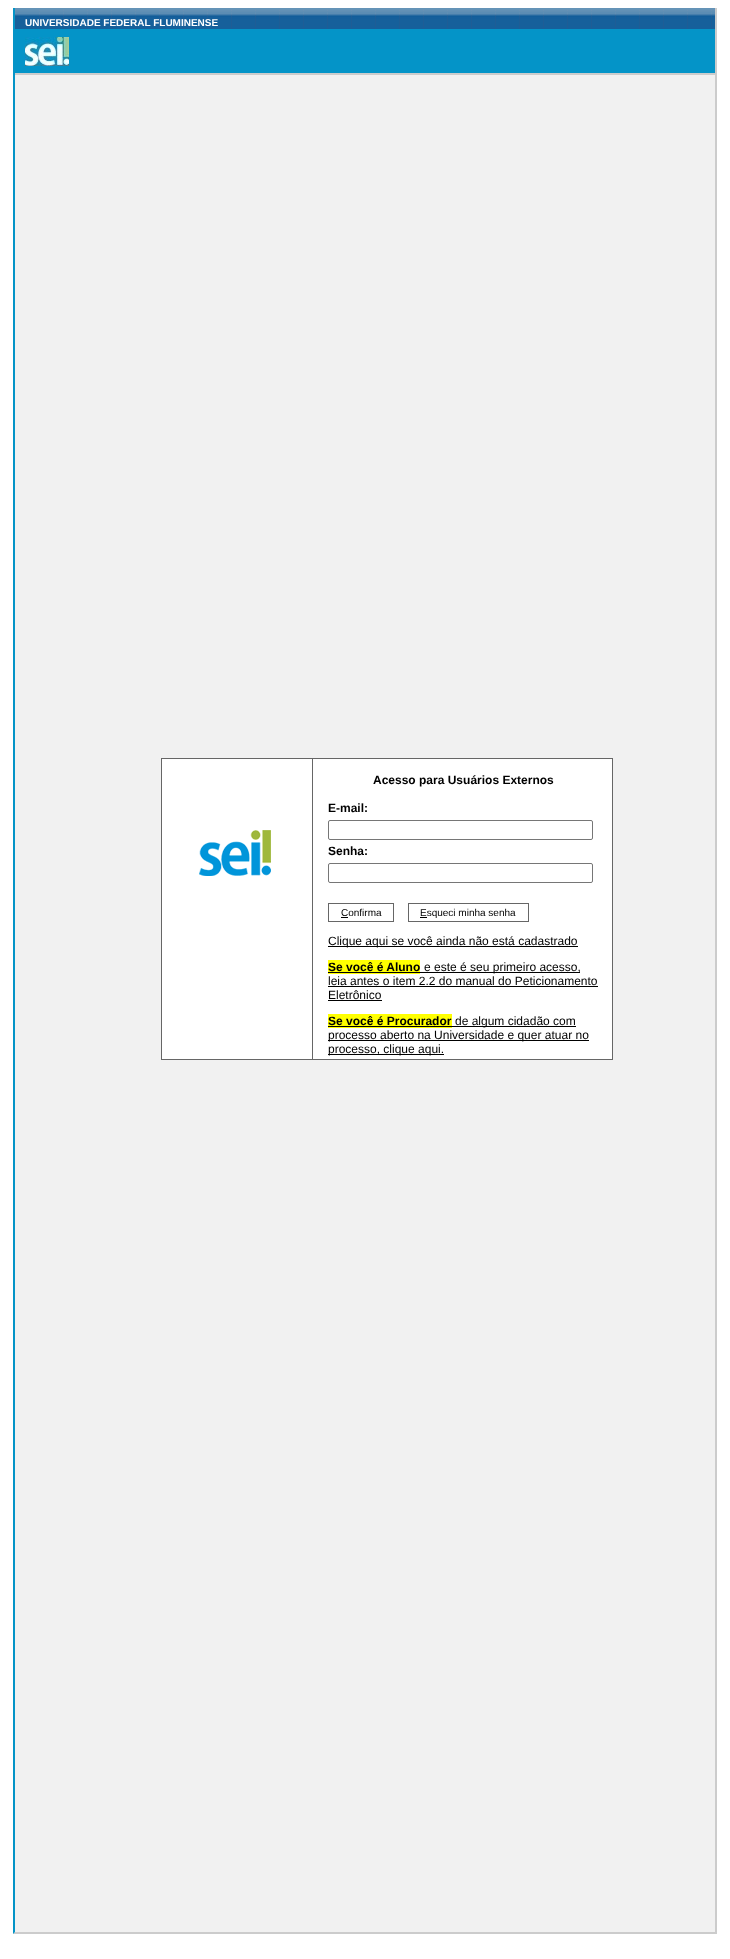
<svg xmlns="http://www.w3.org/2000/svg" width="730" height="1959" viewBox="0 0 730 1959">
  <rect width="100%" height="100%" fill="rgb(255,255,255)"/>
  <rect x="13" y="75" width="702" height="1859" fill="rgb(241,241,241)"/>
  <rect x="715" y="8" width="2" height="1926" fill="rgb(204,204,204)"/>
  <path d="M717 1934H13L15 1932H715Z" fill="rgb(204,204,204)"/>
  <path d="M13 1934V8H15V1932Z" fill="rgb(4,148,199)"/>
  <image x="15" y="8" width="700" height="21" href="pic1.png"/>
  <text x="25" y="26" font-family="Liberation Sans" font-size="10" font-weight="bold" fill="rgb(255,255,255)">UNIVERSIDADE FEDERAL FLUMINENSE</text>
  <rect x="15" y="29" width="700" height="44" fill="rgb(4,148,200)"/>
  <rect x="15" y="73" width="700" height="2" fill="rgb(204,204,204)"/>
  <image x="25" y="37" width="44" height="29" href="pic2.png"/>
  <rect x="161.5" y="758.5" width="451" height="301" fill="rgb(255,255,255)" stroke="rgb(102,102,102)"/>
  <rect x="312" y="759" width="1" height="300" fill="rgb(102,102,102)"/>
  <image x="199" y="830" width="72" height="46" href="pic3.png"/>
  <g font-family="Liberation Sans" font-size="12" font-weight="bold" fill="rgb(0,0,0)">
    <text x="373" y="784">Acesso para Usuários Externos</text>
    <text x="328" y="812">E-mail:</text>
  </g>
  <rect x="328.5" y="820.5" width="264" height="19" rx="1.5" fill="none" stroke="rgb(118,118,118)"/>
  <text x="328" y="855" font-family="Liberation Sans" font-size="12" font-weight="bold" fill="rgb(0,0,0)">Senha:</text>
  <rect x="328.5" y="863.5" width="264" height="19" rx="1.5" fill="none" stroke="rgb(118,118,118)"/>
  <rect x="328.5" y="903.5" width="65" height="18" fill="none" stroke="rgb(102,102,102)"/>
  <text x="341" y="916" font-family="Liberation Sans" font-size="10" fill="rgb(0,0,0)">Confirma</text>
  <rect x="341" y="917" width="7" height="1" fill="rgb(0,0,0)"/>
  <rect x="408.5" y="903.5" width="120" height="18" fill="none" stroke="rgb(102,102,102)"/>
  <rect x="420" y="917" width="7" height="1" fill="rgb(0,0,0)"/>
  <text x="420" y="916" font-family="Liberation Sans" font-size="10" fill="rgb(0,0,0)">Esqueci minha senha</text>
  <rect x="328" y="946" width="250" height="1" fill="rgb(0,0,0)"/>
  <text x="328" y="945" font-family="Liberation Sans" font-size="12" fill="rgb(0,0,0)">Clique aqui se você ainda não está cadastrado</text>
  <rect x="328" y="960" width="92" height="14" fill="rgb(255,255,0)"/>
  <text x="328" y="971" font-family="Liberation Sans" font-size="12" font-weight="bold" fill="rgb(0,0,0)">Se você é Aluno</text>
  <rect x="328" y="972" width="252" height="1" fill="rgb(0,0,0)"/>
  <g font-family="Liberation Sans" font-size="12" fill="rgb(0,0,0)">
    <text x="424" y="971">e este é seu primeiro acesso,</text>
    <text x="328" y="985">leia antes o item 2.2 do manual do Peticionamento</text>
  </g>
  <rect x="328" y="986" width="270" height="1" fill="rgb(0,0,0)"/>
  <text x="328" y="999" font-family="Liberation Sans" font-size="12" fill="rgb(0,0,0)">Eletrônico</text>
  <rect x="328" y="1000" width="54" height="1" fill="rgb(0,0,0)"/>
  <rect x="328" y="1014" width="124" height="14" fill="rgb(255,255,0)"/>
  <text x="328" y="1025" font-family="Liberation Sans" font-size="12" font-weight="bold" fill="rgb(0,0,0)">Se você é Procurador</text>
  <rect x="328" y="1026" width="248" height="1" fill="rgb(0,0,0)"/>
  <text x="455" y="1025" font-family="Liberation Sans" font-size="12" fill="rgb(0,0,0)">de algum cidadão com</text>
  <rect x="328" y="1040" width="261" height="1" fill="rgb(0,0,0)"/>
  <text x="328" y="1039" font-family="Liberation Sans" font-size="12" fill="rgb(0,0,0)">processo aberto na Universidade e quer atuar no</text>
  <rect x="328" y="1054" width="116" height="1" fill="rgb(0,0,0)"/>
  <text x="328" y="1053" font-family="Liberation Sans" font-size="12" fill="rgb(0,0,0)">processo, clique aqui.</text>
</svg>
